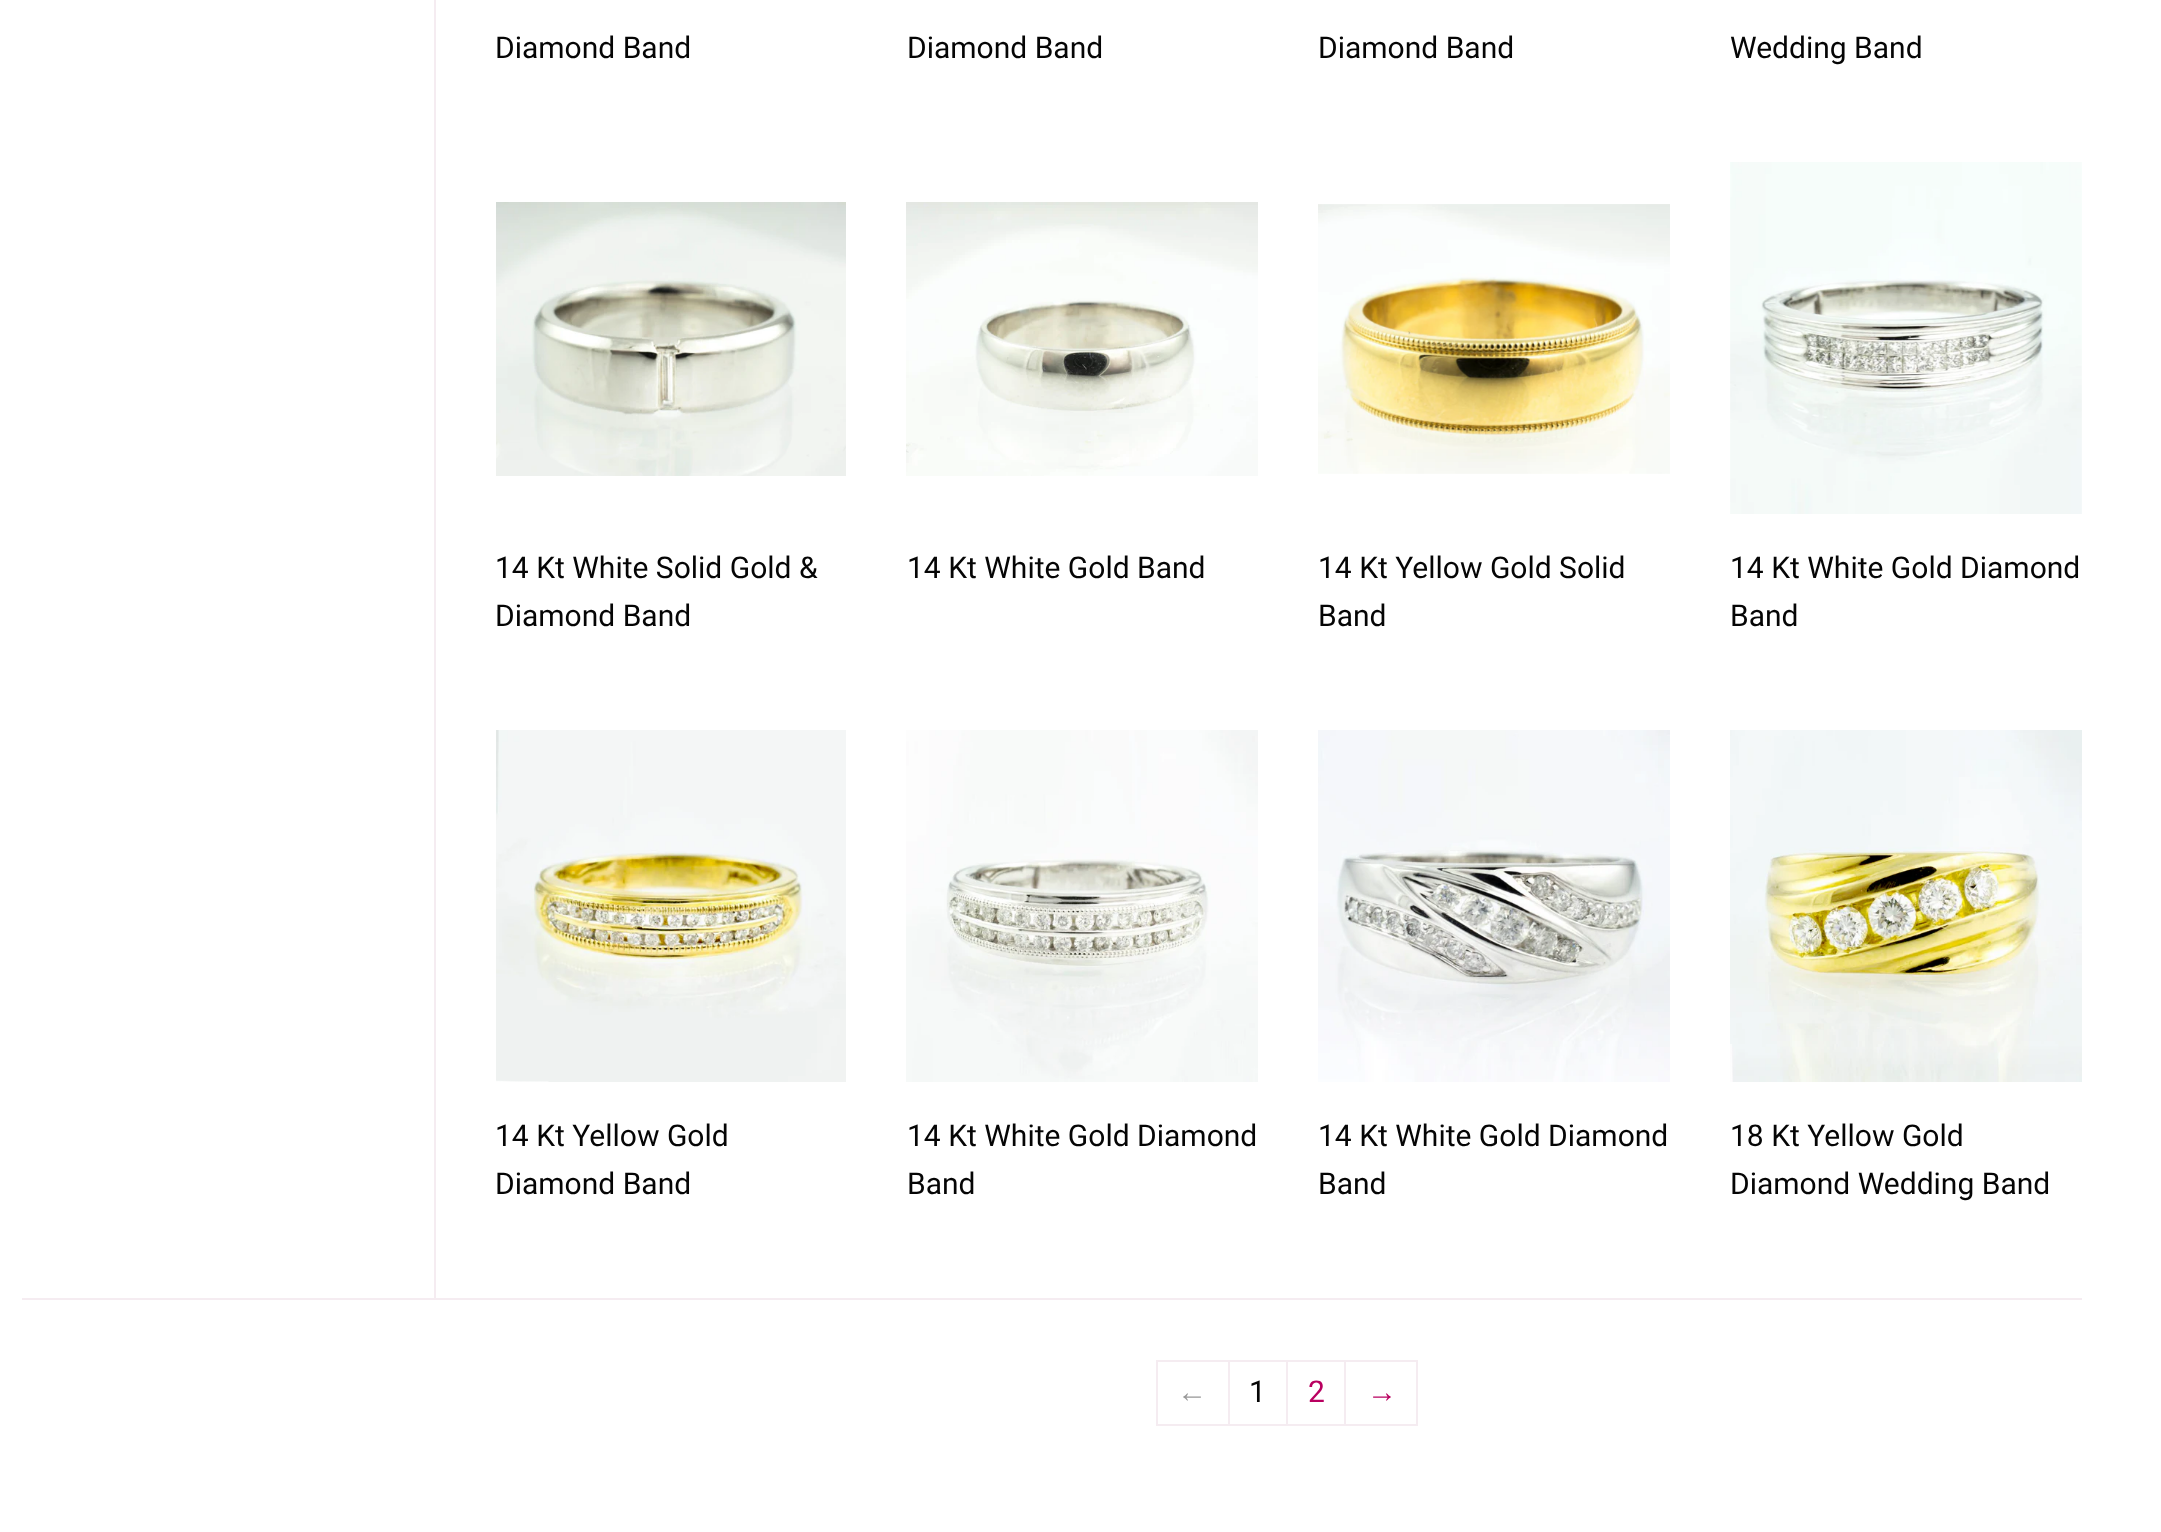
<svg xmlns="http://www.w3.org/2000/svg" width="2161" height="1532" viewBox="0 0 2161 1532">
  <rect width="100%" height="100%" fill="rgb(255,255,255)"/>
  <rect x="434" y="0" width="2" height="1298" fill="rgb(245,236,241)"/>
  <g font-family="Roboto" font-size="30" fill="rgb(5,5,5)">
    <text x="495" y="58">Diamond Band</text>
    <text x="907" y="58">Diamond Band</text>
    <text x="1318" y="58">Diamond Band</text>
    <text x="1730" y="58">Wedding Band</text>
  </g>
  <image x="496" y="202" width="350" height="274" href="pic1.png"/>
  <g font-family="Roboto" font-size="30" fill="rgb(5,5,5)">
    <text>
      <tspan x="495" y="578">14 Kt White Solid Gold &amp;</tspan>
      <tspan x="495" y="626">Diamond Band</tspan>
    </text>
  </g>
  <image x="906" y="202" width="352" height="274" href="pic2.png"/>
  <text x="907" y="578" font-family="Roboto" font-size="30" fill="rgb(5,5,5)">14 Kt White Gold Band</text>
  <image x="1318" y="204" width="352" height="270" href="pic3.png"/>
  <g font-family="Roboto" font-size="30" fill="rgb(5,5,5)">
    <text>
      <tspan x="1318" y="578">14 Kt Yellow Gold Solid</tspan>
      <tspan x="1318" y="626">Band</tspan>
    </text>
  </g>
  <image x="1730" y="162" width="352" height="352" href="pic4.png"/>
  <g font-family="Roboto" font-size="30" fill="rgb(5,5,5)">
    <text>
      <tspan x="1730" y="578">14 Kt White Gold Diamond</tspan>
      <tspan x="1730" y="626">Band</tspan>
    </text>
  </g>
  <image x="496" y="730" width="350" height="352" href="pic5.png"/>
  <g font-family="Roboto" font-size="30" fill="rgb(5,5,5)">
    <text>
      <tspan x="495" y="1146">14 Kt Yellow Gold</tspan>
      <tspan x="495" y="1194">Diamond Band</tspan>
    </text>
  </g>
  <image x="906" y="730" width="352" height="352" href="pic6.png"/>
  <g font-family="Roboto" font-size="30" fill="rgb(5,5,5)">
    <text>
      <tspan x="907" y="1146">14 Kt White Gold Diamond</tspan>
      <tspan x="907" y="1194">Band</tspan>
    </text>
  </g>
  <image x="1318" y="730" width="352" height="352" href="pic7.png"/>
  <g font-family="Roboto" font-size="30" fill="rgb(5,5,5)">
    <text>
      <tspan x="1318" y="1146">14 Kt White Gold Diamond</tspan>
      <tspan x="1318" y="1194">Band</tspan>
    </text>
  </g>
  <image x="1730" y="730" width="352" height="352" href="pic8.png"/>
  <g font-family="Roboto" font-size="30" fill="rgb(5,5,5)">
    <text>
      <tspan x="1730" y="1146">18 Kt Yellow Gold</tspan>
      <tspan x="1730" y="1194">Diamond Wedding Band</tspan>
    </text>
  </g>
  <rect x="22" y="1298" width="2060" height="2" fill="rgb(245,236,241)"/>
  <rect x="1157" y="1361" width="72" height="64" fill="none" stroke="rgb(245,236,241)" stroke-width="2"/>
  <text x="1177" y="1402" font-family="Liberation Sans" font-size="30" fill="rgb(153,153,153)">←</text>
  <rect x="1287" y="1361" width="58" height="64" fill="none" stroke="rgb(245,236,241)" stroke-width="2"/>
  <rect x="1229" y="1361" width="58" height="64" fill="none" stroke="rgb(245,236,241)" stroke-width="2"/>
  <text x="1249" y="1402" font-family="Roboto" font-size="30" fill="rgb(5,5,5)">1</text>
  <text x="1308" y="1402" font-family="Roboto" font-size="30" fill="rgb(185,0,96)">2</text>
  <rect x="1345" y="1361" width="72" height="64" fill="none" stroke="rgb(245,236,241)" stroke-width="2"/>
  <text x="1367" y="1402" font-family="Liberation Sans" font-size="30" fill="rgb(185,0,96)">→</text>
</svg>
